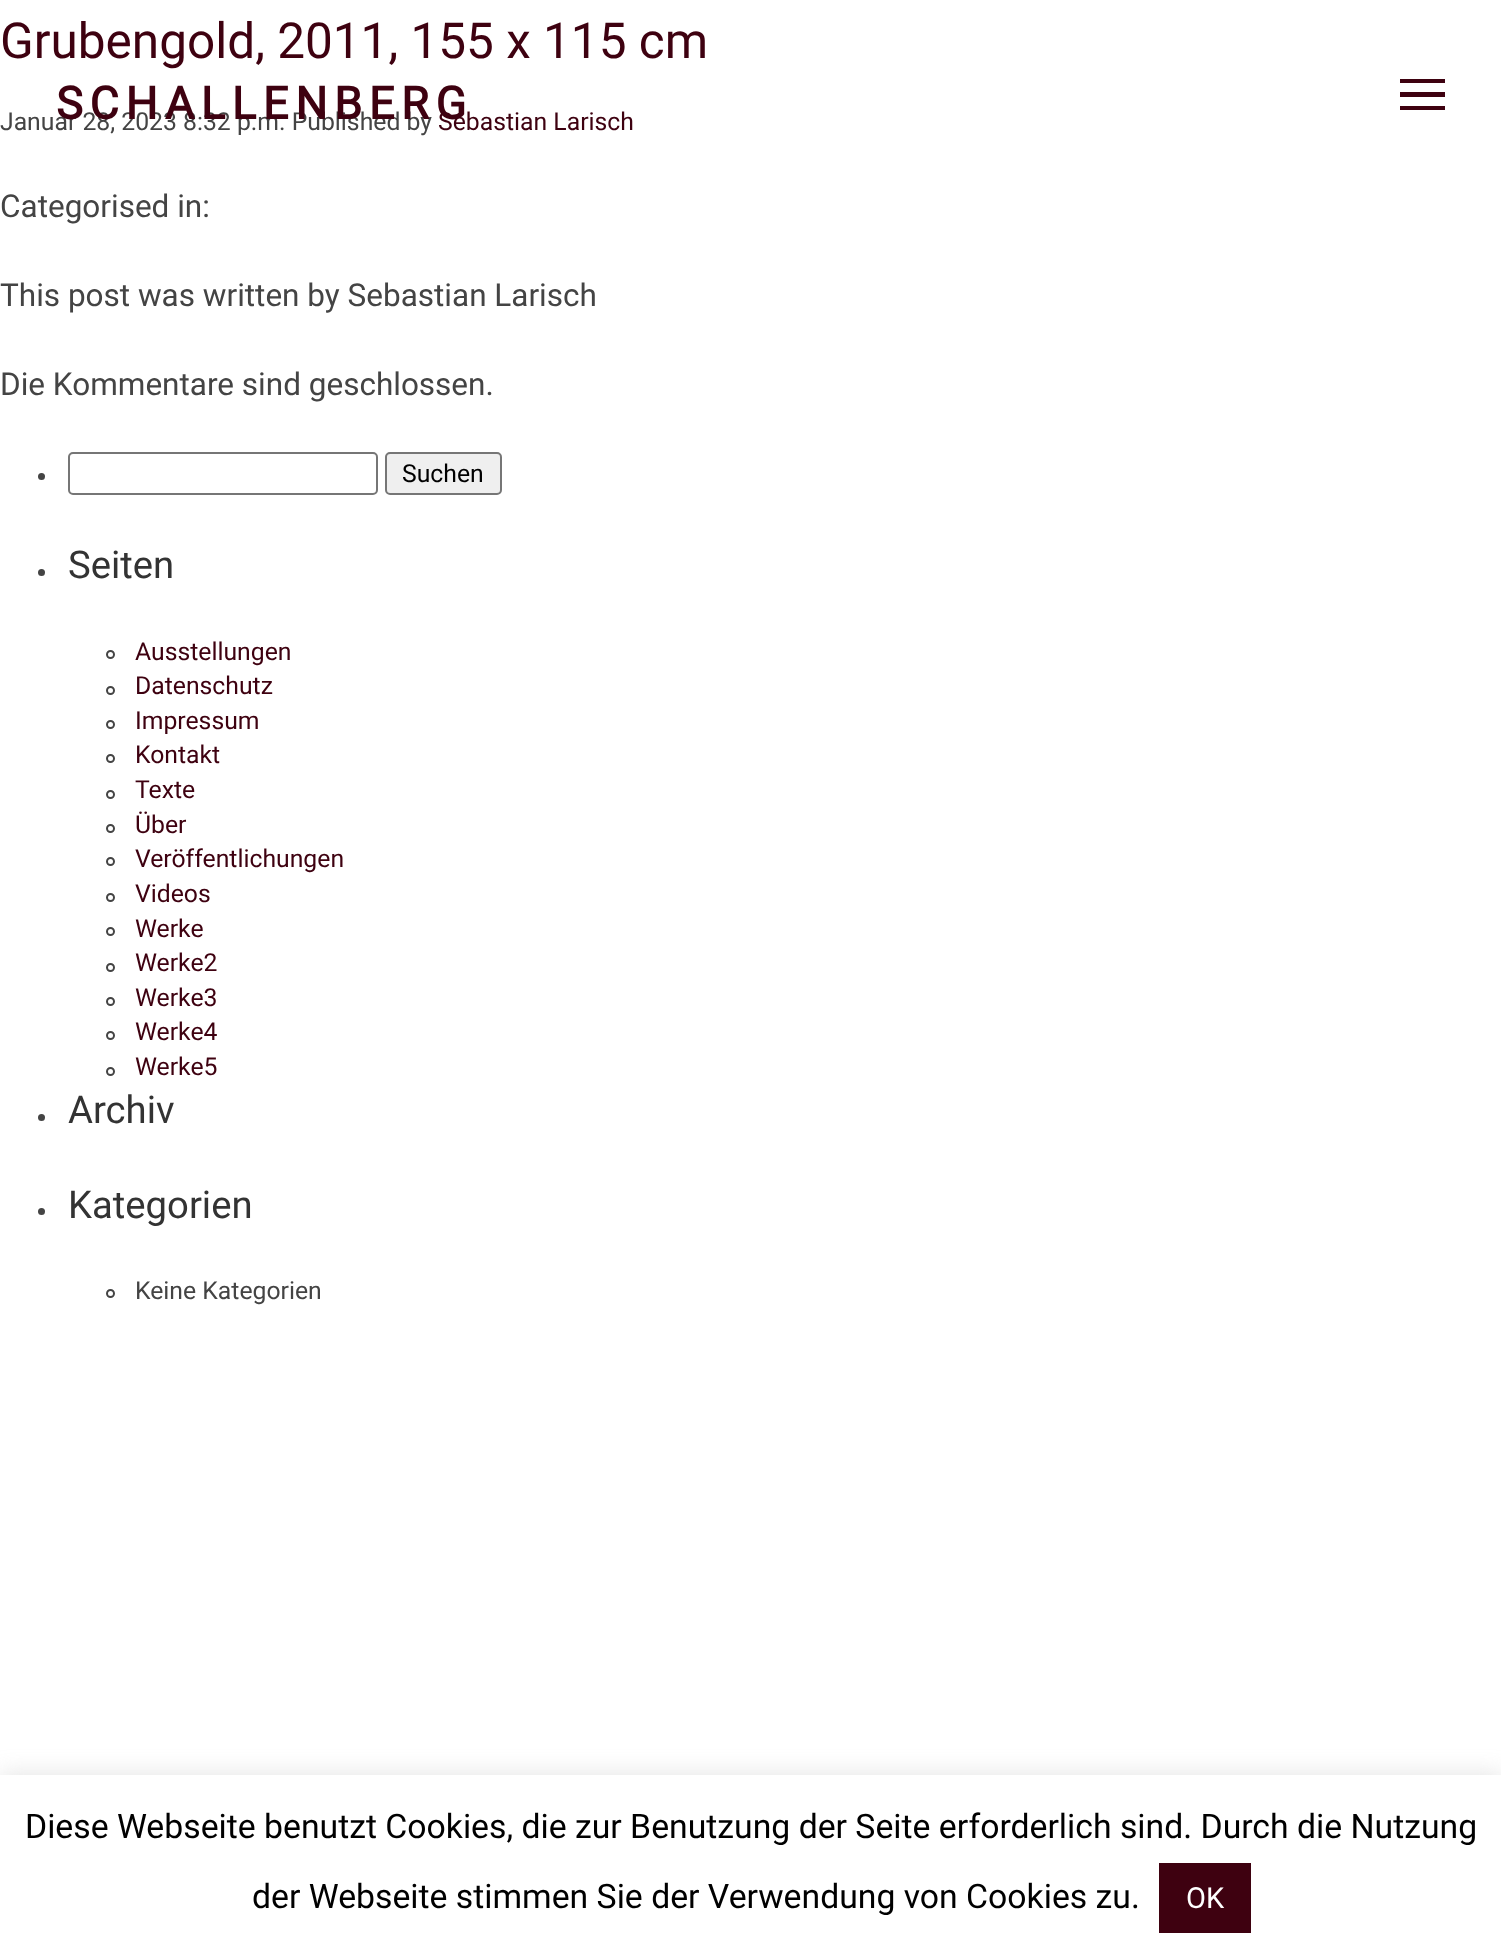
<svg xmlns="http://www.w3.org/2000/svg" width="1501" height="1958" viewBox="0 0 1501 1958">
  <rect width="100%" height="100%" fill="rgb(255,255,255)"/>
  <text x="0" y="58" font-family="Roboto" font-size="49.5" fill="rgb(62,1,16)">Grubengold, 2011, 155 x 115 cm</text>
  <text x="0" y="130" font-family="Roboto" font-size="24.75" fill="rgb(68,68,68)">Januar 28, 2023 8:32 p.m. Published by</text>
  <text x="438" y="130" font-family="Roboto" font-size="24.75" fill="rgb(62,1,16)">Sebastian Larisch</text>
  <g font-family="Roboto" font-size="31.5" fill="rgb(68,68,68)">
    <text x="0" y="217">Categorised in:</text>
    <text x="0" y="306">This post was written by Sebastian Larisch</text>
    <text x="0" y="395">Die Kommentare sind geschlossen.</text>
  </g>
  <text x="56" y="119" font-family="Roboto" font-size="45" font-weight="bold" letter-spacing="6.75" fill="rgb(62,1,16)">SCHALLENBERG</text>
  <rect x="1400" y="79" width="45" height="4" fill="rgb(62,1,16)"/>
  <rect x="1400" y="92" width="45" height="5" fill="rgb(62,1,16)"/>
  <rect x="1400" y="106" width="45" height="4" fill="rgb(62,1,16)"/>
  <circle cx="41.5" cy="476.5" r="3.5" fill="rgb(68,68,68)"/>
  <rect x="69" y="453" width="308" height="41" rx="4" fill="none" stroke="rgb(118,118,118)" stroke-width="2"/>
  <rect x="386" y="453" width="115" height="41" rx="4" fill="rgb(239,239,239)" stroke="rgb(118,118,118)" stroke-width="2"/>
  <text x="402" y="482" font-family="Roboto" font-size="24.75" fill="rgb(0,0,0)">Suchen</text>
  <circle cx="41.5" cy="572.5" r="3.5" fill="rgb(68,68,68)"/>
  <text x="68" y="578" font-family="Roboto" font-size="38.25" fill="rgb(51,51,51)">Seiten</text>
  <circle cx="110.5" cy="654.5" r="3.5" fill="none" stroke="rgb(68,68,68)" stroke-width="2"/>
  <text x="135" y="660" font-family="Roboto" font-size="24.75" fill="rgb(62,1,16)">Ausstellungen</text>
  <circle cx="110.5" cy="690.5" r="3.5" fill="none" stroke="rgb(68,68,68)" stroke-width="2"/>
  <text x="135" y="694" font-family="Roboto" font-size="24.75" fill="rgb(62,1,16)">Datenschutz</text>
  <circle cx="110.5" cy="724.5" r="3.5" fill="none" stroke="rgb(68,68,68)" stroke-width="2"/>
  <text x="135" y="729" font-family="Roboto" font-size="24.75" fill="rgb(62,1,16)">Impressum</text>
  <circle cx="110.5" cy="758.5" r="3.5" fill="none" stroke="rgb(68,68,68)" stroke-width="2"/>
  <text x="135" y="763" font-family="Roboto" font-size="24.75" fill="rgb(62,1,16)">Kontakt</text>
  <circle cx="110.5" cy="794.5" r="3.5" fill="none" stroke="rgb(68,68,68)" stroke-width="2"/>
  <text x="135" y="798" font-family="Roboto" font-size="24.75" fill="rgb(62,1,16)">Texte</text>
  <circle cx="110.5" cy="828.5" r="3.5" fill="none" stroke="rgb(68,68,68)" stroke-width="2"/>
  <text x="135" y="833" font-family="Roboto" font-size="24.75" fill="rgb(62,1,16)">Über</text>
  <circle cx="110.5" cy="861.5" r="3.5" fill="none" stroke="rgb(68,68,68)" stroke-width="2"/>
  <text x="135" y="867" font-family="Roboto" font-size="24.75" fill="rgb(62,1,16)">Veröffentlichungen</text>
  <circle cx="110.5" cy="897.5" r="3.5" fill="none" stroke="rgb(68,68,68)" stroke-width="2"/>
  <text x="135" y="902" font-family="Roboto" font-size="24.75" fill="rgb(62,1,16)">Videos</text>
  <circle cx="110.5" cy="931.5" r="3.5" fill="none" stroke="rgb(68,68,68)" stroke-width="2"/>
  <text x="135" y="937" font-family="Roboto" font-size="24.75" fill="rgb(62,1,16)">Werke</text>
  <circle cx="110.5" cy="967.5" r="3.5" fill="none" stroke="rgb(68,68,68)" stroke-width="2"/>
  <text x="135" y="971" font-family="Roboto" font-size="24.75" fill="rgb(62,1,16)">Werke2</text>
  <circle cx="110.5" cy="1001.5" r="3.5" fill="none" stroke="rgb(68,68,68)" stroke-width="2"/>
  <text x="135" y="1006" font-family="Roboto" font-size="24.75" fill="rgb(62,1,16)">Werke3</text>
  <circle cx="110.5" cy="1035.5" r="3.5" fill="none" stroke="rgb(68,68,68)" stroke-width="2"/>
  <text x="135" y="1040" font-family="Roboto" font-size="24.75" fill="rgb(62,1,16)">Werke4</text>
  <circle cx="110.5" cy="1071.5" r="3.5" fill="none" stroke="rgb(68,68,68)" stroke-width="2"/>
  <text x="135" y="1075" font-family="Roboto" font-size="24.75" fill="rgb(62,1,16)">Werke5</text>
  <circle cx="41.5" cy="1117.5" r="3.5" fill="rgb(68,68,68)"/>
  <text x="68" y="1123" font-family="Roboto" font-size="38.25" fill="rgb(51,51,51)">Archiv</text>
  <circle cx="41.5" cy="1211.5" r="3.5" fill="rgb(68,68,68)"/>
  <text x="68" y="1218" font-family="Roboto" font-size="38.25" fill="rgb(51,51,51)">Kategorien</text>
  <circle cx="110.5" cy="1293.5" r="3.5" fill="none" stroke="rgb(68,68,68)" stroke-width="2"/>
  <text x="135" y="1299" font-family="Roboto" font-size="24.75" fill="rgb(68,68,68)">Keine Kategorien</text>
  <rect x="0" y="1773" width="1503" height="185" fill="rgba(172,171,171,0.3)" filter="blur(11px)"/>
  <rect x="0" y="1775" width="1501" height="183" fill="rgb(255,255,255)"/>
  <g font-family="Roboto" font-size="33.75" fill="rgb(0,0,0)">
    <text x="25" y="1838">Diese Webseite benutzt Cookies, die zur Benutzung der Seite erforderlich sind. Durch die Nutzung</text>
    <text x="252" y="1908">der Webseite stimmen Sie der Verwendung von Cookies zu.</text>
  </g>
  <rect x="1159" y="1863" width="92" height="70" fill="rgb(62,1,16)"/>
  <text x="1186" y="1908" font-family="Roboto" font-size="29" fill="rgb(255,255,255)">OK</text>
</svg>
